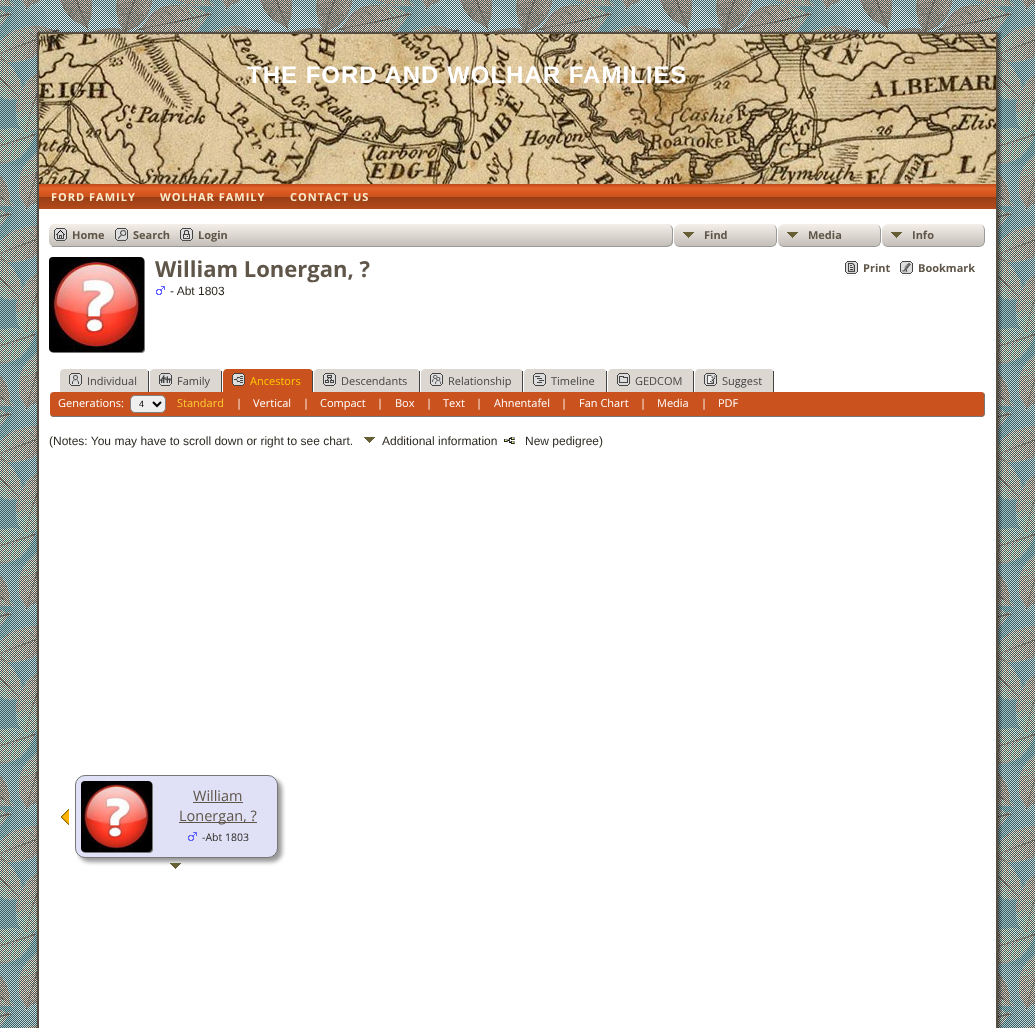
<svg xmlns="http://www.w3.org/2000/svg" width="1035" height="1028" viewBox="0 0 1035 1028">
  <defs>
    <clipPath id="clip1"><rect x="49" y="224" width="937" height="23" rx="6"/></clipPath>
    <linearGradient id="g1" gradientUnits="userSpaceOnUse" x1="518" y1="224" x2="518" y2="246"><stop offset="0" stop-color="rgb(245,239,233)"/><stop offset="1" stop-color="rgb(197,191,185)"/></linearGradient>
    <clipPath id="clip2"><path d="M662 224H667C670.5 224 673 226.5 673 230V241C673 244.5 670.5 247 667 247H662Z"/></clipPath>
    <linearGradient id="g2" gradientUnits="userSpaceOnUse" x1="667" y1="224" x2="667" y2="246"><stop offset="0" stop-color="rgb(245,239,233)"/><stop offset="1" stop-color="rgb(197,191,185)"/></linearGradient>
    <linearGradient id="g3" gradientUnits="userSpaceOnUse" x1="667" y1="246" x2="667" y2="268"><stop offset="0" stop-color="rgb(245,239,233)"/><stop offset="1" stop-color="rgb(197,191,185)"/></linearGradient>
  </defs>
  <rect width="100%" height="100%" fill="rgb(255,255,255)"/>
  <image x="0" y="0" width="1035" height="1028" href="pic1.png"/>
  <image x="36" y="31" width="15" height="15" href="pic2.png"/>
  <image x="51" y="31" width="933" height="3" href="pic3.png"/>
  <image x="984" y="31" width="18" height="15" href="pic4.png"/>
  <image x="36" y="46" width="15" height="982" href="pic5.png"/>
  <image x="984" y="46" width="18" height="982" href="pic30.png"/>
  <image x="39" y="34" width="957" height="150" href="pic6.png"/>
  <text x="247" y="83" font-family="Liberation Sans" font-size="24" font-weight="bold" letter-spacing="1" fill="rgb(255,255,255)">THE FORD AND WOLHAR FAMILIES</text>
  <image x="39" y="184" width="957" height="25" href="pic7.png"/>
  <g font-family="Open Sans" font-size="11" font-weight="bold" letter-spacing="1" fill="rgb(251,235,203)">
    <text x="51" y="201">FORD FAMILY</text>
    <text x="160" y="201">WOLHAR FAMILY</text>
    <text x="290" y="201">CONTACT US</text>
  </g>
  <rect x="51" y="209" width="933" height="819" fill="rgb(255,255,255)"/>
  <rect x="49" y="224" width="937" height="23" rx="6" fill="rgb(220,215,209)"/>
  <g clip-path="url(#clip1)">
    <path d="M55 224H980C983.5 224 986 226.5 986 230V246H49V230C49 226.5 51.5 224 55 224Z" fill="url(#g1)"/>
  </g>
  <rect x="52" y="246" width="610" height="1" fill="rgb(153,153,153)"/>
  <image x="54" y="228" width="13" height="15" href="pic8.png"/>
  <text x="72" y="239" font-family="Open Sans" font-size="11" font-weight="bold" fill="rgb(95,86,73)">Home</text>
  <image x="115" y="228" width="13" height="15" href="pic9.png"/>
  <text x="133" y="239" font-family="Open Sans" font-size="11" font-weight="bold" fill="rgb(95,86,73)">Search</text>
  <image x="180" y="228" width="13" height="15" href="pic10.png"/>
  <text x="198" y="239" font-family="Open Sans" font-size="11" font-weight="bold" fill="rgb(95,86,73)">Login</text>
  <rect x="667" y="224" width="319" height="23" fill="rgb(255,255,255)"/>
  <g clip-path="url(#clip2)">
    <rect x="662" y="224" width="11" height="22" fill="url(#g2)"/>
    <rect x="662" y="246" width="11" height="1" fill="url(#g3)"/>
  </g>
  <path d="M662 224C666 224 672 223.5 673 229V242C672 247.5 666 247 662 247ZM662 224H668C673 225.5 672 232 672 235.5C672 245.5 671.5 246 662 246Z" fill="rgb(153,153,153)" fill-rule="evenodd"/>
  <image x="674" y="224" width="102" height="22" href="pic11.png"/>
  <path d="M680 224H771C774 224 777 227 777 230V241C777 244 774 247 771 247H680C677 247 674 244 674 241V230C674 227 677 224 680 224ZM680 224H771C774 224 776 227 776 230V241C776 244 774 246 771 246H680C677 246 674 244 674 241V230C674 227 677 224 680 224Z" fill="rgb(153,153,153)" fill-rule="evenodd"/>
  <text x="704" y="239" font-family="Open Sans" font-size="11" font-weight="bold" fill="rgb(95,86,73)">Find</text>
  <image x="778" y="224" width="102" height="22" href="pic11.png"/>
  <path d="M784 224H875C878 224 881 227 881 230V241C881 244 878 247 875 247H784C781 247 778 244 778 241V230C778 227 781 224 784 224ZM784 224H875C878 224 880 227 880 230V241C880 244 878 246 875 246H784C781 246 778 244 778 241V230C778 227 781 224 784 224Z" fill="rgb(153,153,153)" fill-rule="evenodd"/>
  <text x="808" y="239" font-family="Open Sans" font-size="11" font-weight="bold" fill="rgb(95,86,73)">Media</text>
  <image x="882" y="224" width="102" height="22" href="pic11.png"/>
  <path d="M888 224H979C982 224 985 227 985 230V241C985 244 982 247 979 247H888C885 247 882 244 882 241V230C882 227 885 224 888 224ZM888 224H979C982 224 984 227 984 230V241C984 244 982 246 979 246H888C885 246 882 244 882 241V230C882 227 885 224 888 224Z" fill="rgb(153,153,153)" fill-rule="evenodd"/>
  <text x="912" y="239" font-family="Open Sans" font-size="11" font-weight="bold" fill="rgb(95,86,73)">Info</text>
  <rect x="50" y="258" width="95" height="95" rx="4" fill="rgb(119,119,119)" filter="blur(0.5px)"/>
  <image x="49" y="257" width="95" height="95" href="pic12.png"/>
  <text x="155" y="277" font-family="Open Sans" font-size="22" font-weight="bold" fill="rgb(95,86,73)">William Lonergan, ?</text>
  <image x="845" y="261" width="13" height="15" href="pic13.png"/>
  <text x="863" y="272" font-family="Open Sans" font-size="11" font-weight="bold" fill="rgb(95,86,73)">Print</text>
  <image x="900" y="261" width="13" height="15" href="pic14.png"/>
  <text x="918" y="272" font-family="Open Sans" font-size="11" font-weight="bold" fill="rgb(95,86,73)">Bookmark</text>
  <image x="156" y="286" width="9" height="9" href="pic15.png"/>
  <text x="170" y="295" font-family="Liberation Sans" font-size="12" fill="rgb(46,42,35)">- Abt 1803</text>
  <path d="M64 369H145C147 369 149 371 149 373V392H60V373C60 371 62 369 64 369Z" fill="rgb(220,215,209)"/>
  <rect x="148" y="371" width="1" height="21" fill="rgb(68,68,68)"/>
  <image x="69" y="373" width="13" height="13" href="pic16.png"/>
  <text x="87" y="385" font-family="Open Sans" font-size="11" fill="rgb(68,68,68)">Individual</text>
  <path d="M154 369H218C220 369 222 371 222 373V392H150V373C150 371 152 369 154 369Z" fill="rgb(220,215,209)"/>
  <rect x="221" y="371" width="1" height="21" fill="rgb(68,68,68)"/>
  <image x="159" y="373" width="13" height="13" href="pic17.png"/>
  <text x="177" y="385" font-family="Open Sans" font-size="11" fill="rgb(68,68,68)">Family</text>
  <path d="M227 369H309C311 369 313 371 313 373V392H223V373C223 371 225 369 227 369Z" fill="rgb(202,82,30)"/>
  <rect x="312" y="371" width="1" height="21" fill="rgb(68,68,68)"/>
  <image x="232" y="373" width="13" height="13" href="pic18.png"/>
  <text x="250" y="385" font-family="Open Sans" font-size="11" fill="rgb(255,204,0)">Ancestors</text>
  <path d="M318 369H416C418 369 420 371 420 373V392H314V373C314 371 316 369 318 369Z" fill="rgb(220,215,209)"/>
  <rect x="419" y="371" width="1" height="21" fill="rgb(68,68,68)"/>
  <image x="323" y="373" width="13" height="13" href="pic19.png"/>
  <text x="341" y="385" font-family="Open Sans" font-size="11" fill="rgb(68,68,68)">Descendants</text>
  <path d="M425 369H519C521 369 523 371 523 373V392H421V373C421 371 423 369 425 369Z" fill="rgb(220,215,209)"/>
  <rect x="522" y="371" width="1" height="21" fill="rgb(68,68,68)"/>
  <image x="430" y="373" width="13" height="13" href="pic20.png"/>
  <text x="448" y="385" font-family="Open Sans" font-size="11" fill="rgb(68,68,68)">Relationship</text>
  <path d="M528 369H603C605 369 607 371 607 373V392H524V373C524 371 526 369 528 369Z" fill="rgb(220,215,209)"/>
  <rect x="606" y="371" width="1" height="21" fill="rgb(68,68,68)"/>
  <image x="533" y="373" width="13" height="13" href="pic21.png"/>
  <text x="551" y="385" font-family="Open Sans" font-size="11" fill="rgb(68,68,68)">Timeline</text>
  <path d="M612 369H690C692 369 694 371 694 373V392H608V373C608 371 610 369 612 369Z" fill="rgb(220,215,209)"/>
  <rect x="693" y="371" width="1" height="21" fill="rgb(68,68,68)"/>
  <image x="617" y="373" width="13" height="13" href="pic22.png"/>
  <text x="635" y="385" font-family="Open Sans" font-size="11" fill="rgb(68,68,68)">GEDCOM</text>
  <path d="M699 369H770C772 369 774 371 774 373V392H695V373C695 371 697 369 699 369Z" fill="rgb(220,215,209)"/>
  <rect x="773" y="371" width="1" height="21" fill="rgb(68,68,68)"/>
  <image x="704" y="373" width="13" height="13" href="pic23.png"/>
  <text x="722" y="385" font-family="Open Sans" font-size="11" fill="rgb(68,68,68)">Suggest</text>
  <rect x="50" y="392" width="935" height="25" rx="4" fill="rgb(202,82,30)"/>
  <path d="M54 392H981C983 392 985 394 985 396V413C985 415 983 417 981 417H54C52 417 50 415 50 413V396C50 394 52 392 54 392ZM54 392H981C983 392 984 394 984 396V413C984 415 983 416 981 416H54C52 416 50 415 50 413V396C50 394 52 392 54 392Z" fill="rgb(119,119,119)" fill-rule="evenodd"/>
  <text x="58" y="407" font-family="Open Sans" font-size="11" fill="rgb(255,255,255)">Generations:</text>
  <rect x="130.5" y="395.5" width="35" height="17" rx="4.5" fill="rgb(239,239,239)" stroke="rgb(128,128,128)"/>
  <path d="M153 402L157 406L161 402" fill="none" stroke="rgb(0,0,0)" stroke-width="2"/>
  <text x="139" y="407" font-family="Liberation Sans" font-size="9" fill="rgb(0,0,0)">4</text>
  <text x="177" y="407" font-family="Open Sans" font-size="11" fill="rgb(255,204,51)">Standard</text>
  <g font-family="Open Sans" font-size="11" fill="rgb(255,255,255)">
    <text x="236" y="407">|</text>
    <text x="253" y="407">Vertical</text>
    <text x="303" y="407">|</text>
    <text x="320" y="407">Compact</text>
    <text x="377" y="407">|</text>
    <text x="395" y="407">Box</text>
    <text x="426" y="407">|</text>
    <text x="443" y="407">Text</text>
    <text x="476" y="407">|</text>
    <text x="494" y="407">Ahnentafel</text>
    <text x="561" y="407">|</text>
    <text x="579" y="407">Fan Chart</text>
    <text x="640" y="407">|</text>
    <text x="657" y="407">Media</text>
    <text x="701" y="407">|</text>
    <text x="718" y="407">PDF</text>
  </g>
  <text x="49" y="445" font-family="Liberation Sans" font-size="12" fill="rgb(46,42,35)">(Notes: You may have to scroll down or right to see chart.</text>
  <image x="364" y="437" width="11" height="6" href="pic24.png"/>
  <text x="382" y="445" font-family="Liberation Sans" font-size="12" fill="rgb(46,42,35)">Additional information</text>
  <image x="504" y="437" width="11" height="7" href="pic25.png"/>
  <text x="525" y="445" font-family="Liberation Sans" font-size="12" fill="rgb(46,42,35)">New pedigree)</text>
  <image x="61" y="809" width="8" height="16" href="pic26.png"/>
  <rect x="79" y="779" width="203" height="83" rx="10" fill="rgb(153,153,153)" filter="blur(2px)"/>
  <rect x="75.5" y="775.5" width="202" height="82" rx="9.5" fill="rgb(224,224,247)" stroke="rgb(119,119,119)"/>
  <rect x="82" y="782" width="71" height="71" rx="4" fill="rgb(119,119,119)" filter="blur(0.5px)"/>
  <image x="81" y="781" width="71" height="71" href="pic27.png"/>
  <text x="193" y="801" font-family="Open Sans" font-size="14.5" fill="rgb(95,86,73)">William</text>
  <rect x="193" y="802" width="50" height="1" fill="rgb(95,86,73)"/>
  <rect x="179" y="822" width="78" height="1" fill="rgb(95,86,73)"/>
  <text x="179" y="821" font-family="Open Sans" font-size="14.5" fill="rgb(95,86,73)">Lonergan, ?</text>
  <image x="188" y="832" width="9" height="9" href="pic28.png"/>
  <text x="202" y="841" font-family="Open Sans" font-size="10.5" fill="rgb(46,42,35)">-Abt 1803</text>
  <image x="170" y="863" width="11" height="6" href="pic29.png"/>
</svg>
